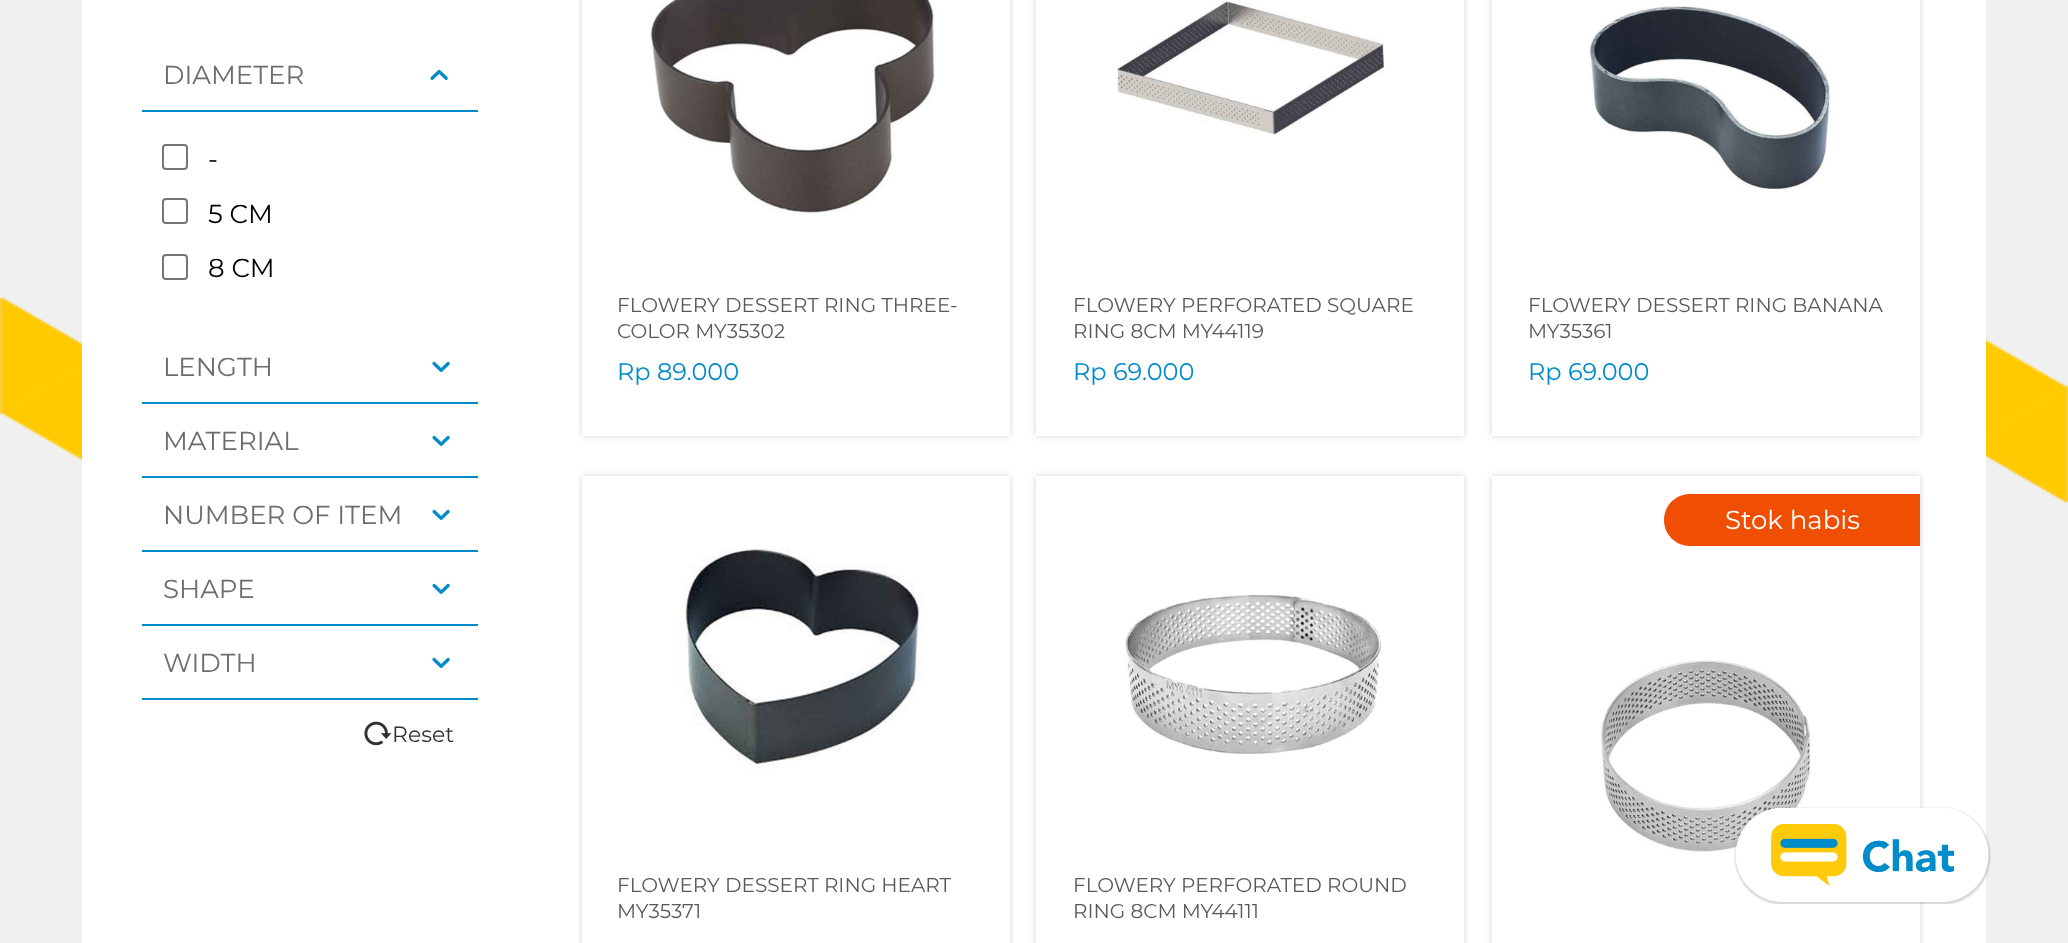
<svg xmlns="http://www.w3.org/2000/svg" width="2068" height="943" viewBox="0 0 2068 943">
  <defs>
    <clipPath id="clip1"><path d="M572 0H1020V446H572ZM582-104H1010V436H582Z" clip-rule="evenodd"/></clipPath>
    <clipPath id="clip2"><path d="M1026 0H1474V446H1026ZM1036-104H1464V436H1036Z" clip-rule="evenodd"/></clipPath>
    <clipPath id="clip3"><path d="M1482 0H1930V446H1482ZM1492-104H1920V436H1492Z" clip-rule="evenodd"/></clipPath>
    <clipPath id="clip4"><path d="M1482 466H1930V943H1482ZM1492 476H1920V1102H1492Z" clip-rule="evenodd"/></clipPath>
    <clipPath id="clip5"><path d="M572 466H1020V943H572ZM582 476H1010V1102H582Z" clip-rule="evenodd"/></clipPath>
    <clipPath id="clip6"><path d="M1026 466H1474V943H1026ZM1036 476H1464V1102H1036Z" clip-rule="evenodd"/></clipPath>
  </defs>
  <rect width="100%" height="100%" fill="rgb(240,240,240)"/>
  <image x="0" y="297" width="2068" height="206" href="pic1.png"/>
  <rect x="82" y="0" width="1904" height="943" fill="rgb(255,255,255)"/>
  <rect x="142" y="110" width="336" height="2" fill="rgb(0,139,202)"/>
  <text x="163" y="84" font-family="Montserrat" font-size="26" fill="rgb(108,109,109)">DIAMETER</text>
  <image x="430" y="69" width="18" height="11" href="pic2.png"/>
  <rect x="163" y="145" width="24" height="24" rx="3" fill="none" stroke="rgb(118,118,118)" stroke-width="2"/>
  <text x="208" y="168" font-family="Montserrat" font-size="26" fill="rgb(0,0,0)">-</text>
  <rect x="163" y="199" width="24" height="24" rx="3" fill="none" stroke="rgb(118,118,118)" stroke-width="2"/>
  <text x="208" y="223" font-family="Montserrat" font-size="26" fill="rgb(0,0,0)">5 CM</text>
  <rect x="163" y="255" width="24" height="24" rx="3" fill="none" stroke="rgb(118,118,118)" stroke-width="2"/>
  <text x="208" y="277" font-family="Montserrat" font-size="26" fill="rgb(0,0,0)">8 CM</text>
  <rect x="142" y="402" width="336" height="2" fill="rgb(0,139,202)"/>
  <text x="163" y="376" font-family="Montserrat" font-size="26" fill="rgb(108,109,109)">LENGTH</text>
  <image x="432" y="361" width="18" height="11" href="pic3.png"/>
  <rect x="142" y="476" width="336" height="2" fill="rgb(0,139,202)"/>
  <text x="163" y="450" font-family="Montserrat" font-size="26" fill="rgb(108,109,109)">MATERIAL</text>
  <image x="432" y="435" width="18" height="11" href="pic3.png"/>
  <rect x="142" y="550" width="336" height="2" fill="rgb(0,139,202)"/>
  <text x="163" y="524" font-family="Montserrat" font-size="26" fill="rgb(108,109,109)">NUMBER OF ITEM</text>
  <image x="432" y="509" width="18" height="11" href="pic3.png"/>
  <rect x="142" y="624" width="336" height="2" fill="rgb(0,139,202)"/>
  <text x="163" y="598" font-family="Montserrat" font-size="26" fill="rgb(108,109,109)">SHAPE</text>
  <image x="432" y="583" width="18" height="11" href="pic3.png"/>
  <rect x="142" y="698" width="336" height="2" fill="rgb(0,139,202)"/>
  <text x="163" y="672" font-family="Montserrat" font-size="26" fill="rgb(108,109,109)">WIDTH</text>
  <image x="432" y="657" width="18" height="11" href="pic3.png"/>
  <image x="364" y="721" width="28" height="25" href="pic4.png"/>
  <text x="392" y="742" font-family="Montserrat" font-size="22" fill="rgb(51,51,51)">Reset</text>
  <g clip-path="url(#clip1)">
    <rect x="582" y="-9" width="428" height="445" fill="rgb(212,212,212)" filter="blur(3px)"/>
  </g>
  <image x="650" y="0" width="286" height="215" href="pic5.png"/>
  <g font-family="Montserrat" font-size="20" fill="rgb(89,89,89)">
    <text>
      <tspan x="617" y="312">FLOWERY DESSERT RING THREE-</tspan>
      <tspan x="617" y="338">COLOR MY35302</tspan>
    </text>
  </g>
  <text x="617" y="380" font-family="Montserrat" font-size="24" fill="rgb(0,139,202)">Rp 89.000</text>
  <g clip-path="url(#clip2)">
    <rect x="1036" y="-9" width="428" height="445" fill="rgb(212,212,212)" filter="blur(3px)"/>
  </g>
  <image x="1116" y="0" width="269" height="135" href="pic6.png"/>
  <g font-family="Montserrat" font-size="20" fill="rgb(89,89,89)">
    <text>
      <tspan x="1073" y="312">FLOWERY PERFORATED SQUARE</tspan>
      <tspan x="1073" y="338">RING 8CM MY44119</tspan>
    </text>
  </g>
  <text x="1073" y="380" font-family="Montserrat" font-size="24" fill="rgb(0,139,202)">Rp 69.000</text>
  <g clip-path="url(#clip3)">
    <rect x="1492" y="-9" width="428" height="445" fill="rgb(212,212,212)" filter="blur(3px)"/>
  </g>
  <image x="1589" y="6" width="242" height="186" href="pic7.png"/>
  <g font-family="Montserrat" font-size="20" fill="rgb(89,89,89)">
    <text>
      <tspan x="1528" y="312">FLOWERY DESSERT RING BANANA</tspan>
      <tspan x="1528" y="338">MY35361</tspan>
    </text>
  </g>
  <text x="1528" y="380" font-family="Montserrat" font-size="24" fill="rgb(0,139,202)">Rp 69.000</text>
  <g clip-path="url(#clip4)">
    <rect x="1492" y="476" width="428" height="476" fill="rgb(212,212,212)" filter="blur(3px)"/>
  </g>
  <path d="M1690 494H1920V546H1690C1675.5 546 1664 534.5 1664 520C1664 505.5 1675.5 494 1690 494Z" fill="rgb(240,78,3)"/>
  <text x="1725" y="529" font-family="Montserrat" font-size="26" fill="rgb(255,255,255)">Stok habis</text>
  <image x="1601" y="660" width="210" height="192" href="pic8.png"/>
  <g clip-path="url(#clip5)">
    <rect x="582" y="476" width="428" height="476" fill="rgb(212,212,212)" filter="blur(3px)"/>
  </g>
  <image x="679" y="547" width="244" height="222" href="pic9.png"/>
  <g font-family="Montserrat" font-size="20" fill="rgb(89,89,89)">
    <text>
      <tspan x="617" y="892">FLOWERY DESSERT RING HEART</tspan>
      <tspan x="617" y="918">MY35371</tspan>
    </text>
  </g>
  <g clip-path="url(#clip6)">
    <rect x="1036" y="476" width="428" height="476" fill="rgb(212,212,212)" filter="blur(3px)"/>
  </g>
  <image x="1125" y="594" width="257" height="160" href="pic10.png"/>
  <g font-family="Montserrat" font-size="20" fill="rgb(89,89,89)">
    <text>
      <tspan x="1073" y="892">FLOWERY PERFORATED ROUND</tspan>
      <tspan x="1073" y="918">RING 8CM MY44111</tspan>
    </text>
  </g>
  <image x="1734" y="807" width="257" height="97" href="pic11.png"/>
</svg>
